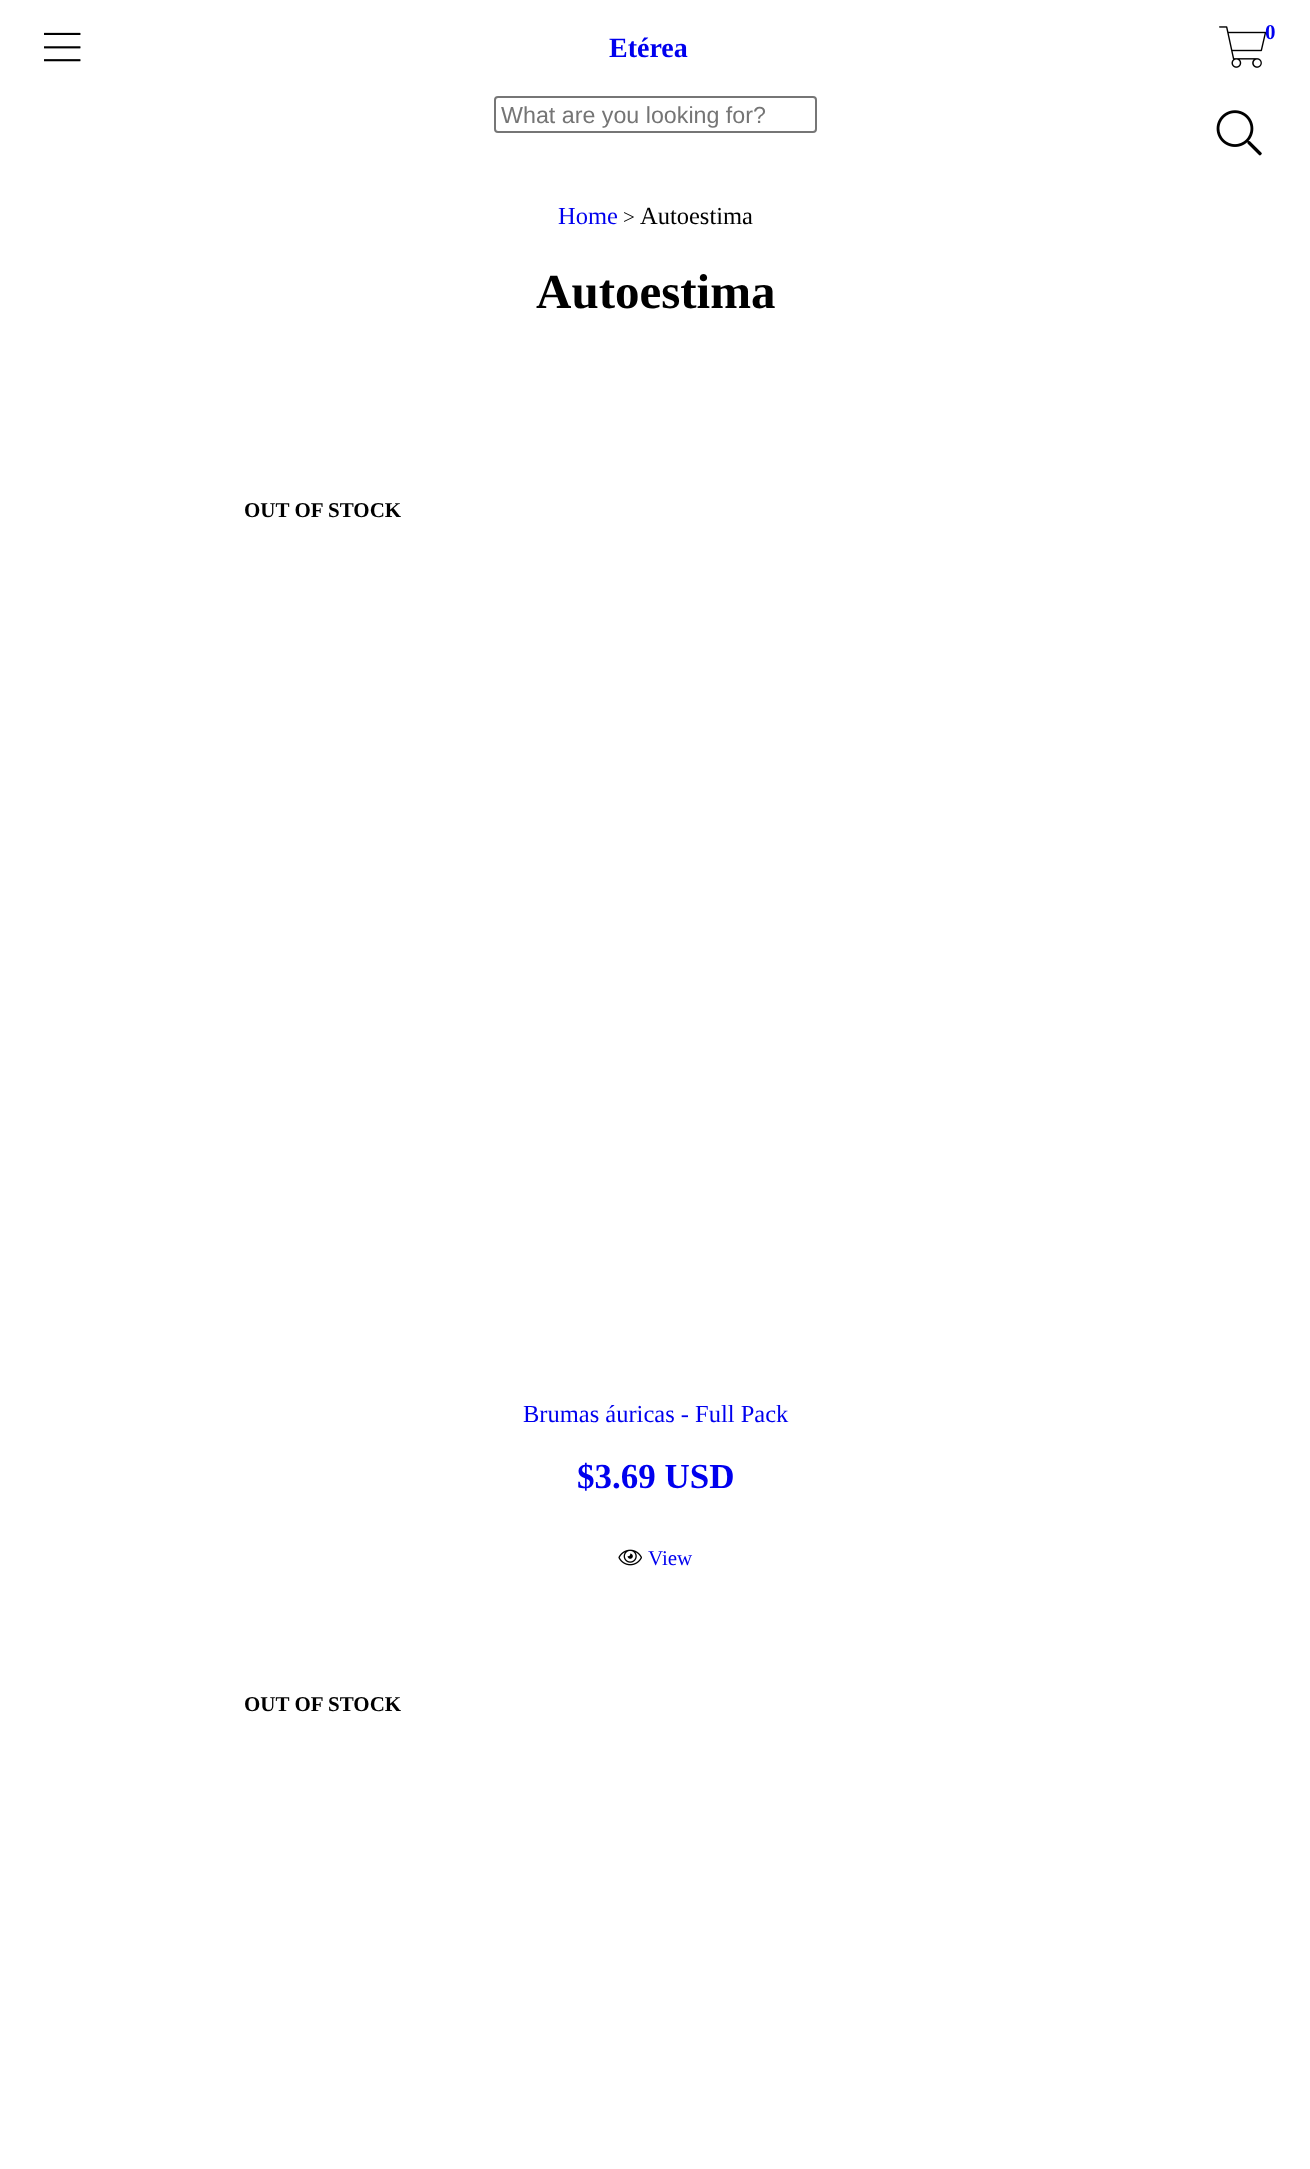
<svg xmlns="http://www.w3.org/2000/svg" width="1310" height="2169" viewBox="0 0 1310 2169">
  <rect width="100%" height="100%" fill="rgb(255,255,255)"/>
  <image x="44" y="32" width="37" height="30" href="pic1.png"/>
  <text x="609" y="57" font-family="Liberation Serif" font-size="28" font-weight="bold" fill="rgb(0,0,238)">Etérea</text>
  <image x="1219" y="26" width="48" height="42" href="pic2.png"/>
  <text x="1265" y="39" font-family="Liberation Serif" font-size="21" font-weight="bold" fill="rgb(0,0,238)">0</text>
  <rect x="495" y="97" width="321" height="35" rx="3" fill="none" stroke="rgb(118,118,118)" stroke-width="2"/>
  <text x="501" y="123" font-family="Liberation Sans" font-size="23.25" fill="rgb(117,117,117)">What are you looking for?</text>
  <image x="1216" y="110" width="46" height="46" href="pic3.png"/>
  <text x="558" y="224" font-family="Liberation Serif" font-size="24.5" fill="rgb(0,0,238)">Home</text>
  <text x="623" y="224" font-family="Liberation Serif" font-size="21" fill="rgb(0,0,0)">&gt;</text>
  <text x="640" y="224" font-family="Liberation Serif" font-size="24.5" fill="rgb(0,0,0)">Autoestima</text>
  <text x="536" y="308" font-family="Liberation Serif" font-size="49" font-weight="bold" fill="rgb(0,0,0)">Autoestima</text>
  <text x="244" y="517" font-family="Liberation Serif" font-size="21" font-weight="bold" fill="rgb(0,0,0)">OUT OF STOCK</text>
  <text x="523" y="1422" font-family="Liberation Serif" font-size="24.5" fill="rgb(0,0,238)">Brumas áuricas - Full Pack</text>
  <text x="577" y="1488" font-family="Liberation Serif" font-size="35" font-weight="bold" fill="rgb(0,0,238)">$3.69 USD</text>
  <image x="618" y="1549" width="24" height="17" href="pic4.png"/>
  <text x="648" y="1565" font-family="Liberation Serif" font-size="21" fill="rgb(0,0,238)">View</text>
  <text x="244" y="1711" font-family="Liberation Serif" font-size="21" font-weight="bold" fill="rgb(0,0,0)">OUT OF STOCK</text>
</svg>
